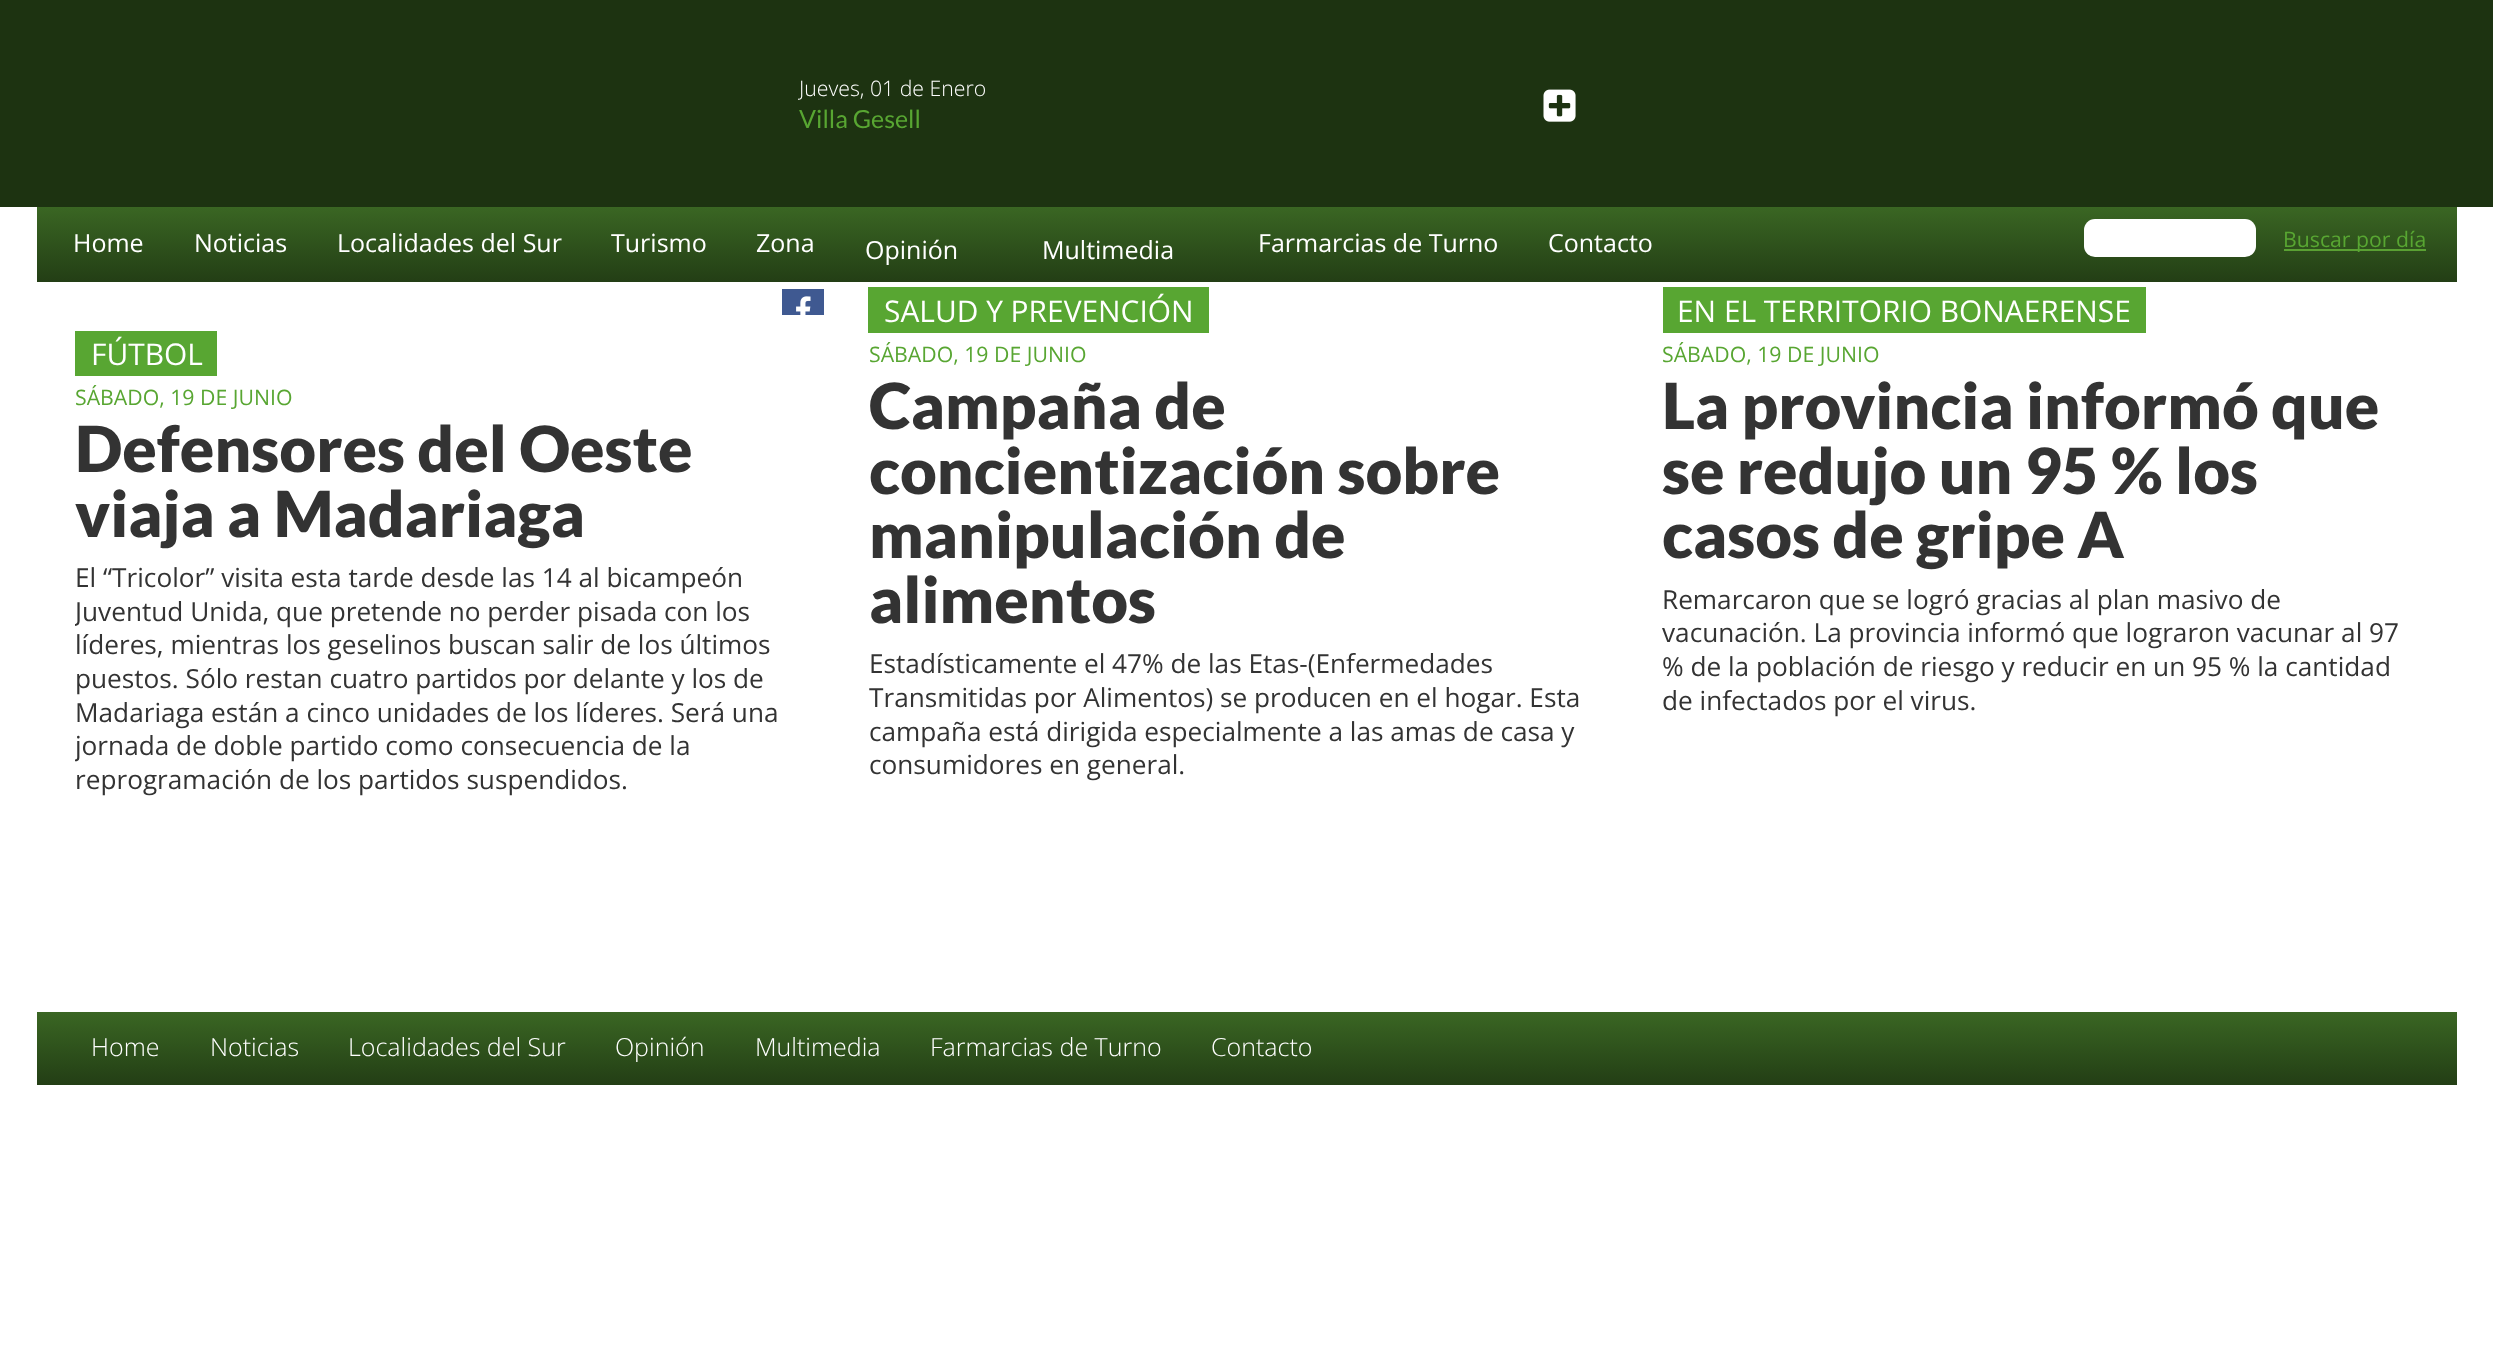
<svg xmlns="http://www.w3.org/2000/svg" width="2493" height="1366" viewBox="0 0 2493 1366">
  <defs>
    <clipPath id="clip1"><rect x="798" y="54" width="826" height="123"/></clipPath>
    <linearGradient id="g1" gradientUnits="userSpaceOnUse" x1="1247" y1="282" x2="1247" y2="207"><stop offset="0" stop-color="rgb(35,62,21)"/><stop offset="1" stop-color="rgb(58,102,35)"/></linearGradient>
    <clipPath id="clip2"><rect x="75" y="287" width="2344" height="564"/></clipPath>
    <linearGradient id="g2" gradientUnits="userSpaceOnUse" x1="1247" y1="1085" x2="1247" y2="1012"><stop offset="0" stop-color="rgb(35,62,21)"/><stop offset="1" stop-color="rgb(58,102,35)"/></linearGradient>
  </defs>
  <rect width="100%" height="100%" fill="rgb(255,255,255)"/>
  <rect x="0" y="0" width="2493" height="207" fill="rgb(29,51,17)"/>
  <g clip-path="url(#clip1)">
    <text x="799" y="96" font-family="Open Sans" font-size="21.25" font-weight="300" fill="rgb(255,255,255)">Jueves, 01 de Enero</text>
  </g>
  <text x="799" y="128" font-family="Lato" font-size="25" fill="rgb(88,166,50)">Villa Gesell</text>
  <image x="1543" y="89" width="33" height="33" href="pic1.png"/>
  <rect x="37" y="207" width="2420" height="75" fill="url(#g1)"/>
  <g font-family="Open Sans" font-size="25" fill="rgb(255,255,255)">
    <text x="73" y="252">Home</text>
    <text x="194" y="252">Noticias</text>
    <text x="337" y="252">Localidades del Sur</text>
    <text x="611" y="252">Turismo</text>
    <text x="756" y="252">Zona</text>
    <text x="865" y="259">Opinión</text>
    <text x="1042" y="259">Multimedia</text>
    <text x="1258" y="252">Farmarcias de Turno</text>
    <text x="1548" y="252">Contacto</text>
  </g>
  <rect x="2084" y="219" width="172" height="38" rx="11" fill="rgb(255,255,255)"/>
  <rect x="2284" y="249" width="142" height="2" fill="rgb(90,161,51)"/>
  <text x="2283" y="247" font-family="Open Sans" font-size="21.25" fill="rgb(88,166,50)">Buscar por día</text>
  <rect x="782" y="289" width="42" height="26" fill="rgb(63,89,145)"/>
  <image x="796" y="296" width="15" height="19" href="pic2.png"/>
  <rect x="75" y="331" width="142" height="45" fill="rgb(88,166,50)"/>
  <text x="91" y="365" font-family="Open Sans" font-size="29.9" fill="rgb(255,255,255)">FÚTBOL</text>
  <text x="75" y="405" font-family="Open Sans" font-size="21.25" fill="rgb(88,166,50)">SÁBADO, 19 DE JUNIO</text>
  <g font-family="Lato" font-size="63.6" font-weight="900" fill="rgb(51,51,51)">
    <text>
      <tspan x="75" y="472">Defensores del Oeste</tspan>
      <tspan x="75" y="537">viaja a Madariaga</tspan>
    </text>
  </g>
  <text x="75" y="587" font-family="Open Sans" font-size="26.2" fill="rgb(51,51,51)">El “Tricolor” visita esta tarde desde las 14 al bicampeón</text>
  <g clip-path="url(#clip2)">
    <text x="75" y="621" font-family="Open Sans" font-size="26.2" fill="rgb(51,51,51)">Juventud Unida, que pretende no perder pisada con los</text>
  </g>
  <g font-family="Open Sans" font-size="26.2" fill="rgb(51,51,51)">
    <text>
      <tspan x="75" y="654">líderes, mientras los geselinos buscan salir de los últimos</tspan>
      <tspan x="75" y="688">puestos. Sólo restan cuatro partidos por delante y los de</tspan>
      <tspan x="75" y="722">Madariaga están a cinco unidades de los líderes. Será una</tspan>
    </text>
  </g>
  <g clip-path="url(#clip2)">
    <text x="75" y="755" font-family="Open Sans" font-size="26.2" fill="rgb(51,51,51)">jornada de doble partido como consecuencia de la</text>
  </g>
  <text x="75" y="789" font-family="Open Sans" font-size="26.2" fill="rgb(51,51,51)">reprogramación de los partidos suspendidos.</text>
  <rect x="868" y="287" width="341" height="46" fill="rgb(88,166,50)"/>
  <text x="884" y="322" font-family="Open Sans" font-size="29.9" fill="rgb(255,255,255)">SALUD Y PREVENCIÓN</text>
  <text x="869" y="362" font-family="Open Sans" font-size="21.25" fill="rgb(88,166,50)">SÁBADO, 19 DE JUNIO</text>
  <g font-family="Lato" font-size="63.6" font-weight="900" fill="rgb(51,51,51)">
    <text>
      <tspan x="869" y="429">Campaña de</tspan>
      <tspan x="869" y="494">concientización sobre</tspan>
      <tspan x="869" y="558">manipulación de</tspan>
      <tspan x="869" y="623">alimentos</tspan>
    </text>
  </g>
  <g font-family="Open Sans" font-size="26.2" fill="rgb(51,51,51)">
    <text>
      <tspan x="869" y="673">Estadísticamente el 47% de las Etas-(Enfermedades</tspan>
      <tspan x="869" y="707">Transmitidas por Alimentos) se producen en el hogar. Esta</tspan>
      <tspan x="869" y="741">campaña está dirigida especialmente a las amas de casa y</tspan>
      <tspan x="869" y="774">consumidores en general.</tspan>
    </text>
  </g>
  <rect x="1663" y="287" width="483" height="46" fill="rgb(88,166,50)"/>
  <text x="1677" y="322" font-family="Open Sans" font-size="29.9" fill="rgb(255,255,255)">EN EL TERRITORIO BONAERENSE</text>
  <text x="1662" y="362" font-family="Open Sans" font-size="21.25" fill="rgb(88,166,50)">SÁBADO, 19 DE JUNIO</text>
  <g font-family="Lato" font-size="63.6" font-weight="900" fill="rgb(51,51,51)">
    <text>
      <tspan x="1662" y="429">La provincia informó que</tspan>
      <tspan x="1662" y="494">se redujo un 95 % los</tspan>
      <tspan x="1662" y="558">casos de gripe A</tspan>
    </text>
  </g>
  <g font-family="Open Sans" font-size="26.2" fill="rgb(51,51,51)">
    <text>
      <tspan x="1662" y="609">Remarcaron que se logró gracias al plan masivo de</tspan>
      <tspan x="1662" y="642">vacunación. La provincia informó que lograron vacunar al 97</tspan>
      <tspan x="1662" y="676">% de la población de riesgo y reducir en un 95 % la cantidad</tspan>
      <tspan x="1662" y="710">de infectados por el virus.</tspan>
    </text>
  </g>
  <rect x="37" y="1012" width="2420" height="73" fill="url(#g2)"/>
  <g font-family="Open Sans" font-size="25" font-weight="300" fill="rgb(255,255,255)">
    <text x="91" y="1056">Home</text>
    <text x="210" y="1056">Noticias</text>
    <text x="348" y="1056">Localidades del Sur</text>
    <text x="615" y="1056">Opinión</text>
    <text x="755" y="1056">Multimedia</text>
    <text x="930" y="1056">Farmarcias de Turno</text>
    <text x="1211" y="1056">Contacto</text>
  </g>
</svg>
